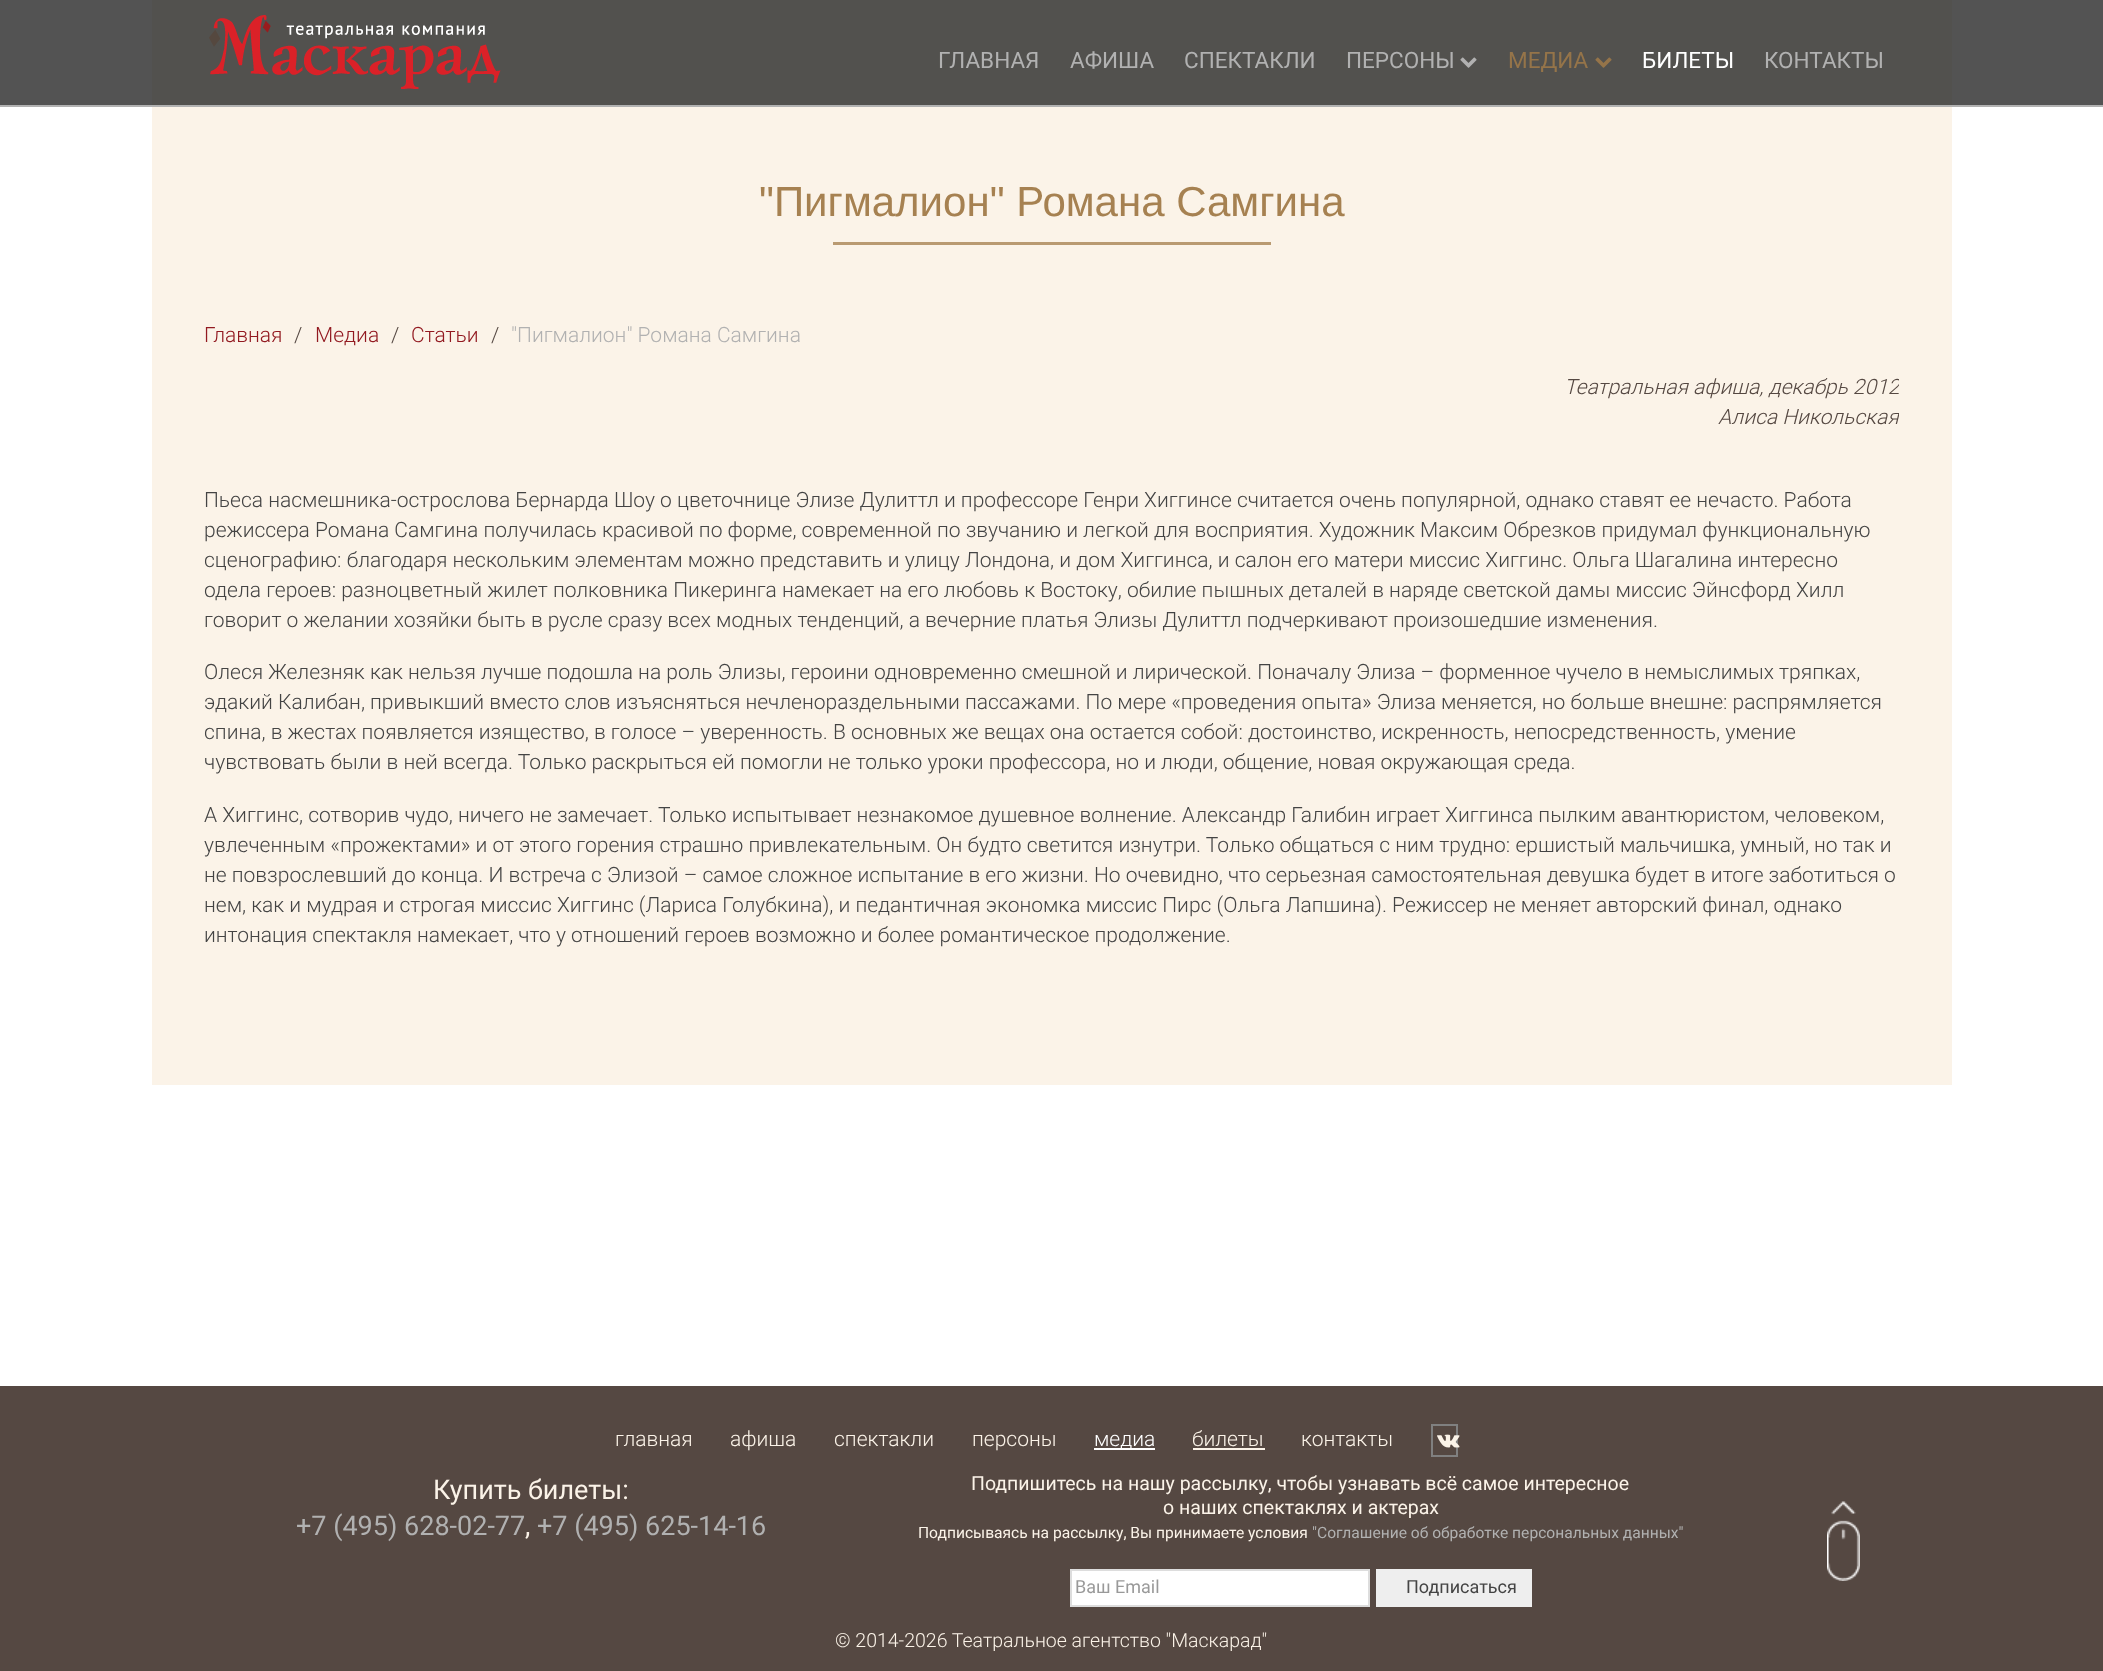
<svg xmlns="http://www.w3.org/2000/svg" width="2103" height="1671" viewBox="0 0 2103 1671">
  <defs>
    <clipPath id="clip1"><rect x="204" y="320" width="1695" height="690"/></clipPath>
  </defs>
  <rect width="100%" height="100%" fill="rgb(255,255,255)"/>
  <rect x="0" y="0" width="2103" height="105" fill="rgb(83,83,83)"/>
  <rect x="0" y="105" width="2103" height="2" fill="rgb(177,177,177)"/>
  <rect x="152" y="0" width="1800" height="105" fill="rgb(82,81,78)"/>
  <image x="209" y="15" width="292" height="74" href="pic1.png"/>
  <g font-family="Roboto" font-size="22.5" fill="rgb(177,177,177)">
    <text x="938" y="68">ГЛАВНАЯ</text>
    <text x="1070" y="68">АФИША</text>
    <text x="1184" y="68">СПЕКТАКЛИ</text>
    <text x="1346" y="68">ПЕРСОНЫ</text>
  </g>
  <image x="1460" y="57" width="17" height="11" href="pic2.png"/>
  <text x="1508" y="68" font-family="Roboto" font-size="22.5" fill="rgb(149,116,73)">МЕДИА</text>
  <image x="1595" y="57" width="17" height="11" href="pic3.png"/>
  <text x="1642" y="68" font-family="Roboto" font-size="22.5" fill="rgb(255,255,255)">БИЛЕТЫ</text>
  <text x="1764" y="68" font-family="Roboto" font-size="22.5" fill="rgb(177,177,177)">КОНТАКТЫ</text>
  <rect x="152" y="107" width="1800" height="978" fill="rgb(251,243,232)"/>
  <text x="759" y="216" font-family="Liberation Sans" font-size="42" fill="rgb(166,129,81)">"Пигмалион" Романа Самгина</text>
  <rect x="833" y="242" width="438" height="3" fill="rgb(185,154,113)"/>
  <text x="204" y="342" font-family="Roboto" font-size="21" font-weight="300" fill="rgb(146,25,32)">Главная</text>
  <text x="294" y="342" font-family="Roboto" font-size="21" font-weight="300" fill="rgb(85,72,66)">/</text>
  <text x="315" y="342" font-family="Roboto" font-size="21" font-weight="300" fill="rgb(146,25,32)">Медиа</text>
  <text x="391" y="342" font-family="Roboto" font-size="21" font-weight="300" fill="rgb(85,72,66)">/</text>
  <text x="411" y="342" font-family="Roboto" font-size="21" font-weight="300" fill="rgb(146,25,32)">Статьи</text>
  <text x="491" y="342" font-family="Roboto" font-size="21" font-weight="300" fill="rgb(85,72,66)">/</text>
  <text x="511" y="342" font-family="Roboto" font-size="21" font-weight="300" fill="rgb(177,177,177)">"Пигмалион" Романа Самгина</text>
  <g clip-path="url(#clip1)">
    <g font-family="Roboto" font-size="21" font-weight="300" font-style="italic" fill="rgb(85,72,66)">
      <text x="1564" y="394">Театральная афиша, декабрь 2012</text>
      <text x="1718" y="424">Алиса Никольская</text>
    </g>
  </g>
  <g font-family="Roboto" font-size="21" font-weight="300" fill="rgb(68,68,68)">
    <text>
      <tspan x="204" y="507">Пьеса насмешника-острослова Бернарда Шоу о цветочнице Элизе Дулиттл и профессоре Генри Хиггинсе считается очень популярной, однако ставят ее нечасто. Работа</tspan>
      <tspan x="204" y="537">режиссера Романа Самгина получилась красивой по форме, современной по звучанию и легкой для восприятия. Художник Максим Обрезков придумал функциональную</tspan>
      <tspan x="204" y="567">сценографию: благодаря нескольким элементам можно представить и улицу Лондона, и дом Хиггинса, и салон его матери миссис Хиггинс. Ольга Шагалина интересно</tspan>
      <tspan x="204" y="597">одела героев: разноцветный жилет полковника Пикеринга намекает на его любовь к Востоку, обилие пышных деталей в наряде светской дамы миссис Эйнсфорд Хилл</tspan>
      <tspan x="204" y="627">говорит о желании хозяйки быть в русле сразу всех модных тенденций, а вечерние платья Элизы Дулиттл подчеркивают произошедшие изменения.</tspan>
    </text>
    <text>
      <tspan x="204" y="679">Олеся Железняк как нельзя лучше подошла на роль Элизы, героини одновременно смешной и лирической. Поначалу Элиза – форменное чучело в немыслимых тряпках,</tspan>
      <tspan x="204" y="709">эдакий Калибан, привыкший вместо слов изъясняться нечленораздельными пассажами. По мере «проведения опыта» Элиза меняется, но больше внешне: распрямляется</tspan>
      <tspan x="204" y="739">спина, в жестах появляется изящество, в голосе – уверенность. В основных же вещах она остается собой: достоинство, искренность, непосредственность, умение</tspan>
      <tspan x="204" y="769">чувствовать были в ней всегда. Только раскрыться ей помогли не только уроки профессора, но и люди, общение, новая окружающая среда.</tspan>
    </text>
    <text>
      <tspan x="204" y="822">А Хиггинс, сотворив чудо, ничего не замечает. Только испытывает незнакомое душевное волнение. Александр Галибин играет Хиггинса пылким авантюристом, человеком,</tspan>
      <tspan x="204" y="852">увлеченным «прожектами» и от этого горения страшно привлекательным. Он будто светится изнутри. Только общаться с ним трудно: ершистый мальчишка, умный, но так и</tspan>
      <tspan x="204" y="882">не повзрослевший до конца. И встреча с Элизой – самое сложное испытание в его жизни. Но очевидно, что серьезная самостоятельная девушка будет в итоге заботиться о</tspan>
      <tspan x="204" y="912">нем, как и мудрая и строгая миссис Хиггинс (Лариса Голубкина), и педантичная экономка миссис Пирс (Ольга Лапшина). Режиссер не меняет авторский финал, однако</tspan>
      <tspan x="204" y="942">интонация спектакля намекает, что у отношений героев возможно и более романтическое продолжение.</tspan>
    </text>
  </g>
  <rect x="0" y="1386" width="2103" height="285" fill="rgb(85,72,66)"/>
  <g font-family="Roboto" font-size="21" font-weight="300" fill="rgb(251,243,232)">
    <text x="615" y="1446">главная</text>
    <text x="730" y="1446">афиша</text>
    <text x="834" y="1446">спектакли</text>
    <text x="972" y="1446">персоны</text>
  </g>
  <rect x="1094" y="1448" width="61" height="2" fill="rgb(255,255,255)"/>
  <text x="1094" y="1446" font-family="Roboto" font-size="21" font-weight="300" fill="rgb(255,255,255)">медиа</text>
  <text x="1192" y="1446" font-family="Roboto" font-size="21" font-weight="300" fill="rgb(251,243,232)">билеты</text>
  <rect x="1193" y="1448" width="72" height="2" fill="rgb(251,243,232)"/>
  <text x="1301" y="1446" font-family="Roboto" font-size="21" font-weight="300" fill="rgb(251,243,232)">контакты</text>
  <rect x="1432" y="1425" width="25" height="31" fill="none" stroke="rgb(128,128,128)" stroke-width="2"/>
  <image x="1437" y="1434" width="23" height="14" href="pic4.png"/>
  <text x="433" y="1499" font-family="Roboto" font-size="27" fill="rgb(251,243,232)">Купить билеты:</text>
  <text x="296" y="1535" font-family="Roboto" font-size="27" fill="rgb(177,177,177)">+7 (495) 628-02-77</text>
  <text x="525" y="1535" font-family="Roboto" font-size="27" fill="rgb(251,243,232)">,</text>
  <text x="537" y="1535" font-family="Roboto" font-size="27" fill="rgb(177,177,177)">+7 (495) 625-14-16</text>
  <g font-family="Roboto" font-size="19.5" fill="rgb(251,243,232)">
    <text x="971" y="1490">Подпишитесь на нашу рассылку, чтобы узнавать всё самое интересное</text>
    <text x="1163" y="1514">о наших спектаклях и актерах</text>
  </g>
  <text x="918" y="1538" font-family="Roboto" font-size="15.6" fill="rgb(251,243,232)">Подписываясь на рассылку, Вы принимаете условия</text>
  <text x="1312" y="1538" font-family="Roboto" font-size="15.6" fill="rgb(177,177,177)">"Соглашение об обработке персональных данных"</text>
  <rect x="1071" y="1570" width="298" height="36" fill="rgb(255,255,255)" stroke="rgb(221,221,221)" stroke-width="2"/>
  <text x="1075" y="1593" font-family="Roboto" font-size="18" fill="rgb(153,153,153)">Ваш Email</text>
  <rect x="1376" y="1569" width="156" height="38" fill="rgb(238,238,238)"/>
  <text x="1406" y="1593" font-family="Roboto" font-size="18" fill="rgb(68,68,68)">Подписаться</text>
  <image x="1827" y="1501" width="33" height="80" href="pic5.png"/>
  <text x="835" y="1647" font-family="Roboto" font-size="19.5" font-weight="300" fill="rgb(251,243,232)">© 2014-2026 Театральное агентство "Маскарад"</text>
</svg>
